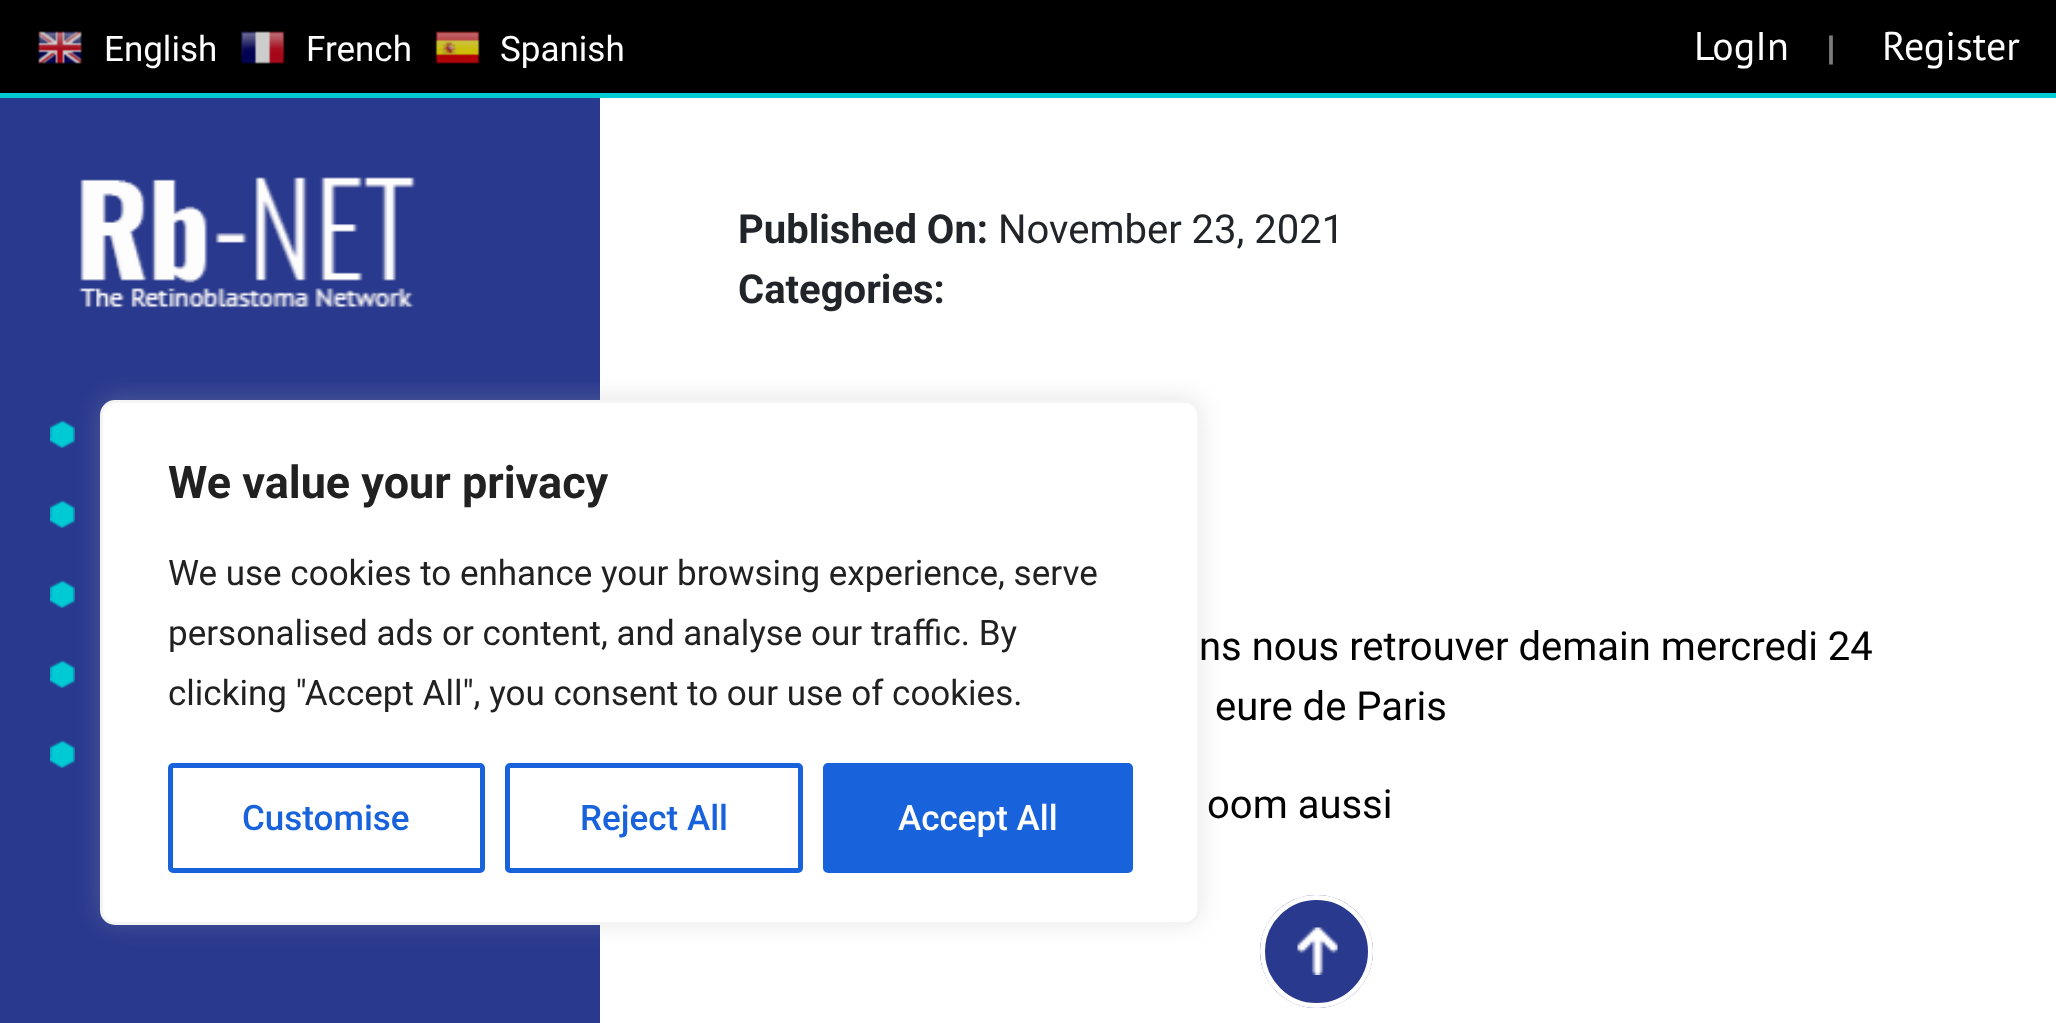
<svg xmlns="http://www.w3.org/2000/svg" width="2056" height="1023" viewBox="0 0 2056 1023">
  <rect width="100%" height="100%" fill="rgb(255,255,255)"/>
  <rect x="0" y="0" width="2056" height="93" fill="rgb(0,0,0)"/>
  <rect x="0" y="93" width="2056" height="5" fill="rgb(0,203,213)"/>
  <image x="38" y="31" width="44" height="33" href="pic1.png"/>
  <text x="104" y="61" font-family="Roboto" font-size="35" fill="rgb(253,253,253)">English</text>
  <image x="240" y="31" width="45" height="33" href="pic2.png"/>
  <text x="306" y="61" font-family="Roboto" font-size="35" fill="rgb(253,253,253)">French</text>
  <image x="435" y="31" width="45" height="33" href="pic3.png"/>
  <text x="500" y="61" font-family="Roboto" font-size="35" fill="rgb(253,253,253)">Spanish</text>
  <text x="1694" y="60" font-family="PT Sans" font-size="40" fill="rgb(253,253,253)">LogIn</text>
  <text x="1827" y="60" font-family="PT Sans" font-size="35" font-weight="bold" fill="rgb(123,123,123)">|</text>
  <text x="1882" y="60" font-family="PT Sans" font-size="40" fill="rgb(253,253,253)">Register</text>
  <rect x="0" y="98" width="600" height="925" fill="rgb(41,57,142)"/>
  <image x="50" y="419" width="25" height="29" href="pic5.png"/>
  <image x="50" y="499" width="25" height="29" href="pic5.png"/>
  <image x="50" y="579" width="25" height="29" href="pic5.png"/>
  <image x="50" y="659" width="25" height="29" href="pic5.png"/>
  <image x="50" y="739" width="25" height="29" href="pic5.png"/>
  <rect x="100" y="398" width="1100" height="525" rx="15" fill="rgba(172,171,171,0.3)" filter="blur(12.5px)"/>
  <rect x="101.5" y="401.5" width="1097" height="522" rx="13.5" fill="rgb(255,255,255)" stroke="rgb(244,244,244)" stroke-width="3"/>
  <text x="168" y="498" font-family="Roboto" font-size="45" font-weight="bold" fill="rgb(33,33,33)">We value your privacy</text>
  <g font-family="Roboto" font-size="35" fill="rgb(33,33,33)">
    <text>
      <tspan x="168" y="585">We use cookies to enhance your browsing experience, serve</tspan>
      <tspan x="168" y="645">personalised ads or content, and analyse our traffic. By</tspan>
      <tspan x="168" y="705">clicking "Accept All", you consent to our use of cookies.</tspan>
    </text>
  </g>
  <rect x="170.5" y="765.5" width="312" height="105" rx="2.5" fill="none" stroke="rgb(24,99,220)" stroke-width="5"/>
  <text x="242" y="830" font-family="Roboto" font-size="35" font-weight="500" fill="rgb(24,99,220)">Customise</text>
  <rect x="507.5" y="765.5" width="293" height="105" rx="2.5" fill="none" stroke="rgb(24,99,220)" stroke-width="5"/>
  <text x="580" y="830" font-family="Roboto" font-size="35" font-weight="500" fill="rgb(24,99,220)">Reject All</text>
  <rect x="825.5" y="765.5" width="305" height="105" rx="2.5" fill="rgb(24,99,220)" stroke="rgb(24,99,220)" stroke-width="5"/>
  <text x="898" y="830" font-family="Roboto" font-size="35" font-weight="500" fill="rgb(253,253,253)">Accept All</text>
  <image x="78" y="177" width="338" height="131" href="pic4.png"/>
  <text x="738" y="243" font-family="Roboto" font-size="40" font-weight="bold" fill="rgb(33,37,41)">Published On:</text>
  <text x="998" y="243" font-family="Roboto" font-size="40" fill="rgb(33,37,41)">November 23, 2021</text>
  <text x="738" y="303" font-family="Roboto" font-size="40" font-weight="bold" fill="rgb(33,37,41)">Categories:</text>
  <g font-family="Roboto" font-size="40" fill="rgb(2,2,2)">
    <text x="1199" y="660">ns nous retrouver demain mercredi 24</text>
    <text x="1215" y="720">eure de Paris</text>
    <text x="1207" y="818">oom aussi</text>
  </g>
  <circle cx="1316.5" cy="951.5" r="56.5" fill="rgb(41,57,142)"/>
  <image x="1297" y="927" width="41" height="48" href="pic6.png"/>
  <circle cx="1316.5" cy="951.5" r="54" fill="none" stroke="rgb(255,255,255)" stroke-width="5"/>
</svg>
